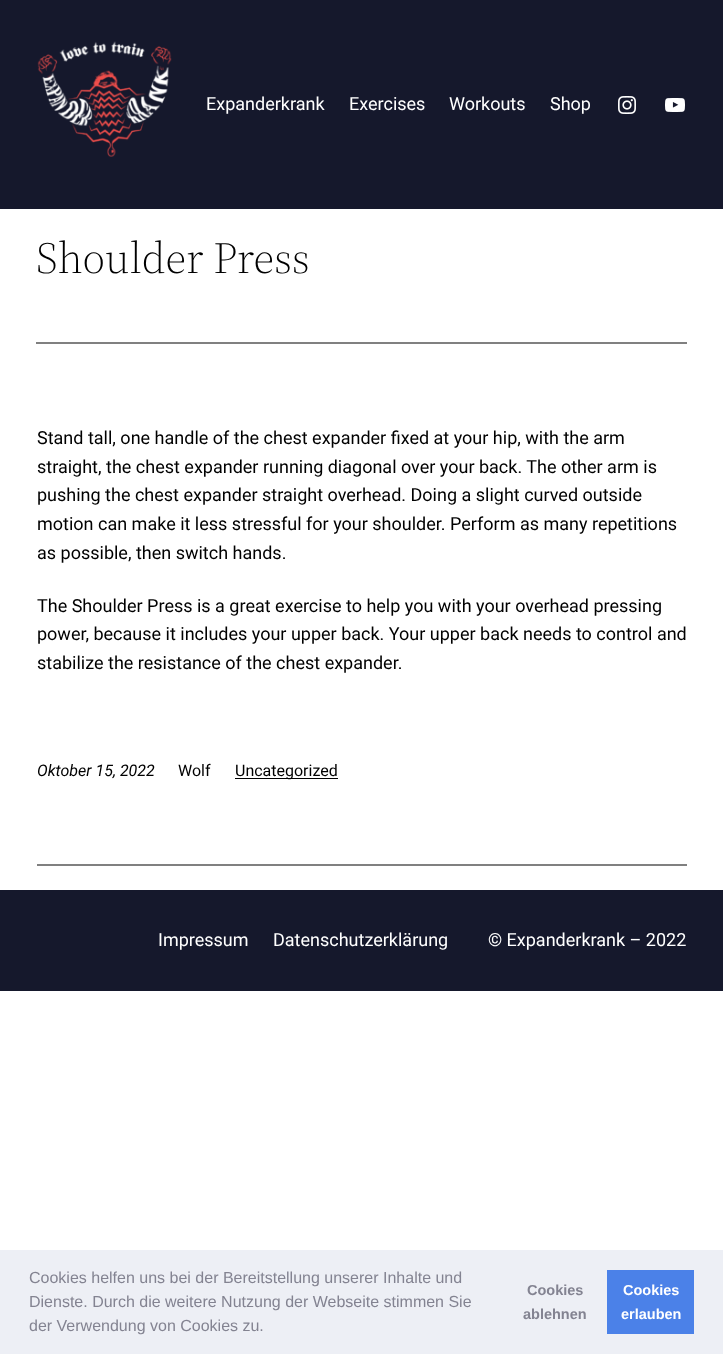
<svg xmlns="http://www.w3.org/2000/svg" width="723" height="1354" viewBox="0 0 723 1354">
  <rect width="100%" height="100%" fill="rgb(255,255,255)"/>
  <rect x="0" y="0" width="723" height="209" fill="rgb(21,24,44)"/>
  <image x="37" y="41" width="135" height="116" href="pic1.png"/>
  <g font-family="Roboto" font-size="18" fill="rgb(255,255,255)">
    <text x="206" y="110">Expanderkrank</text>
    <text x="349" y="110">Exercises</text>
    <text x="449" y="110">Workouts</text>
    <text x="550" y="110">Shop</text>
  </g>
  <image x="618" y="96" width="18" height="18" href="pic2.png"/>
  <image x="665" y="98" width="20" height="14" href="pic3.png"/>
  <text x="36" y="273" font-family="'Source Serif 4'" font-size="44" font-weight="300" fill="rgb(0,0,0)">Shoulder Press</text>
  <rect x="36" y="342" width="651" height="2" fill="rgb(128,128,128)"/>
  <g font-family="Roboto" font-size="18" fill="rgb(0,0,0)">
    <text>
      <tspan x="37" y="444">Stand tall, one handle of the chest expander fixed at your hip, with the arm</tspan>
      <tspan x="37" y="473">straight, the chest expander running diagonal over your back. The other arm is</tspan>
      <tspan x="37" y="501">pushing the chest expander straight overhead. Doing a slight curved outside</tspan>
      <tspan x="37" y="530">motion can make it less stressful for your shoulder. Perform as many repetitions</tspan>
      <tspan x="37" y="559">as possible, then switch hands.</tspan>
    </text>
    <text>
      <tspan x="37" y="612">The Shoulder Press is a great exercise to help you with your overhead pressing</tspan>
      <tspan x="37" y="640">power, because it includes your upper back. Your upper back needs to control and</tspan>
      <tspan x="37" y="669">stabilize the resistance of the chest expander.</tspan>
    </text>
  </g>
  <text x="37" y="776" font-family="Roboto" font-size="16" font-style="italic" fill="rgb(0,0,0)">Oktober 15, 2022</text>
  <text x="178" y="776" font-family="Roboto" font-size="16" fill="rgb(0,0,0)">Wolf</text>
  <rect x="235" y="778" width="103" height="1" fill="rgb(0,0,0)"/>
  <text x="235" y="776" font-family="Roboto" font-size="16" fill="rgb(0,0,0)">Uncategorized</text>
  <rect x="37" y="864" width="650" height="2" fill="rgb(128,128,128)"/>
  <rect x="0" y="890" width="723" height="101" fill="rgb(21,24,44)"/>
  <g font-family="Roboto" font-size="18" fill="rgb(255,255,255)">
    <text x="158" y="946">Impressum</text>
    <text x="273" y="946">Datenschutzerklärung</text>
    <text x="488" y="946">© Expanderkrank – 2022</text>
  </g>
  <rect x="0" y="1250" width="723" height="104" fill="rgb(237,239,245)"/>
  <g font-family="Liberation Sans" font-size="16" fill="rgb(131,131,145)">
    <text>
      <tspan x="29" y="1283">Cookies helfen uns bei der Bereitstellung unserer Inhalte und</tspan>
      <tspan x="29" y="1307">Dienste. Durch die weitere Nutzung der Webseite stimmen Sie</tspan>
      <tspan x="29" y="1331">der Verwendung von Cookies zu.</tspan>
    </text>
  </g>
  <g font-family="Liberation Sans" font-size="14.5" font-weight="bold" fill="rgb(131,131,145)">
    <text x="527" y="1295">Cookies</text>
    <text x="523" y="1319">ablehnen</text>
  </g>
  <rect x="607" y="1270" width="87" height="64" fill="rgb(75,129,232)"/>
  <g font-family="Liberation Sans" font-size="14.5" font-weight="bold" fill="rgb(255,255,255)">
    <text x="623" y="1295">Cookies</text>
    <text x="621" y="1319">erlauben</text>
  </g>
</svg>
